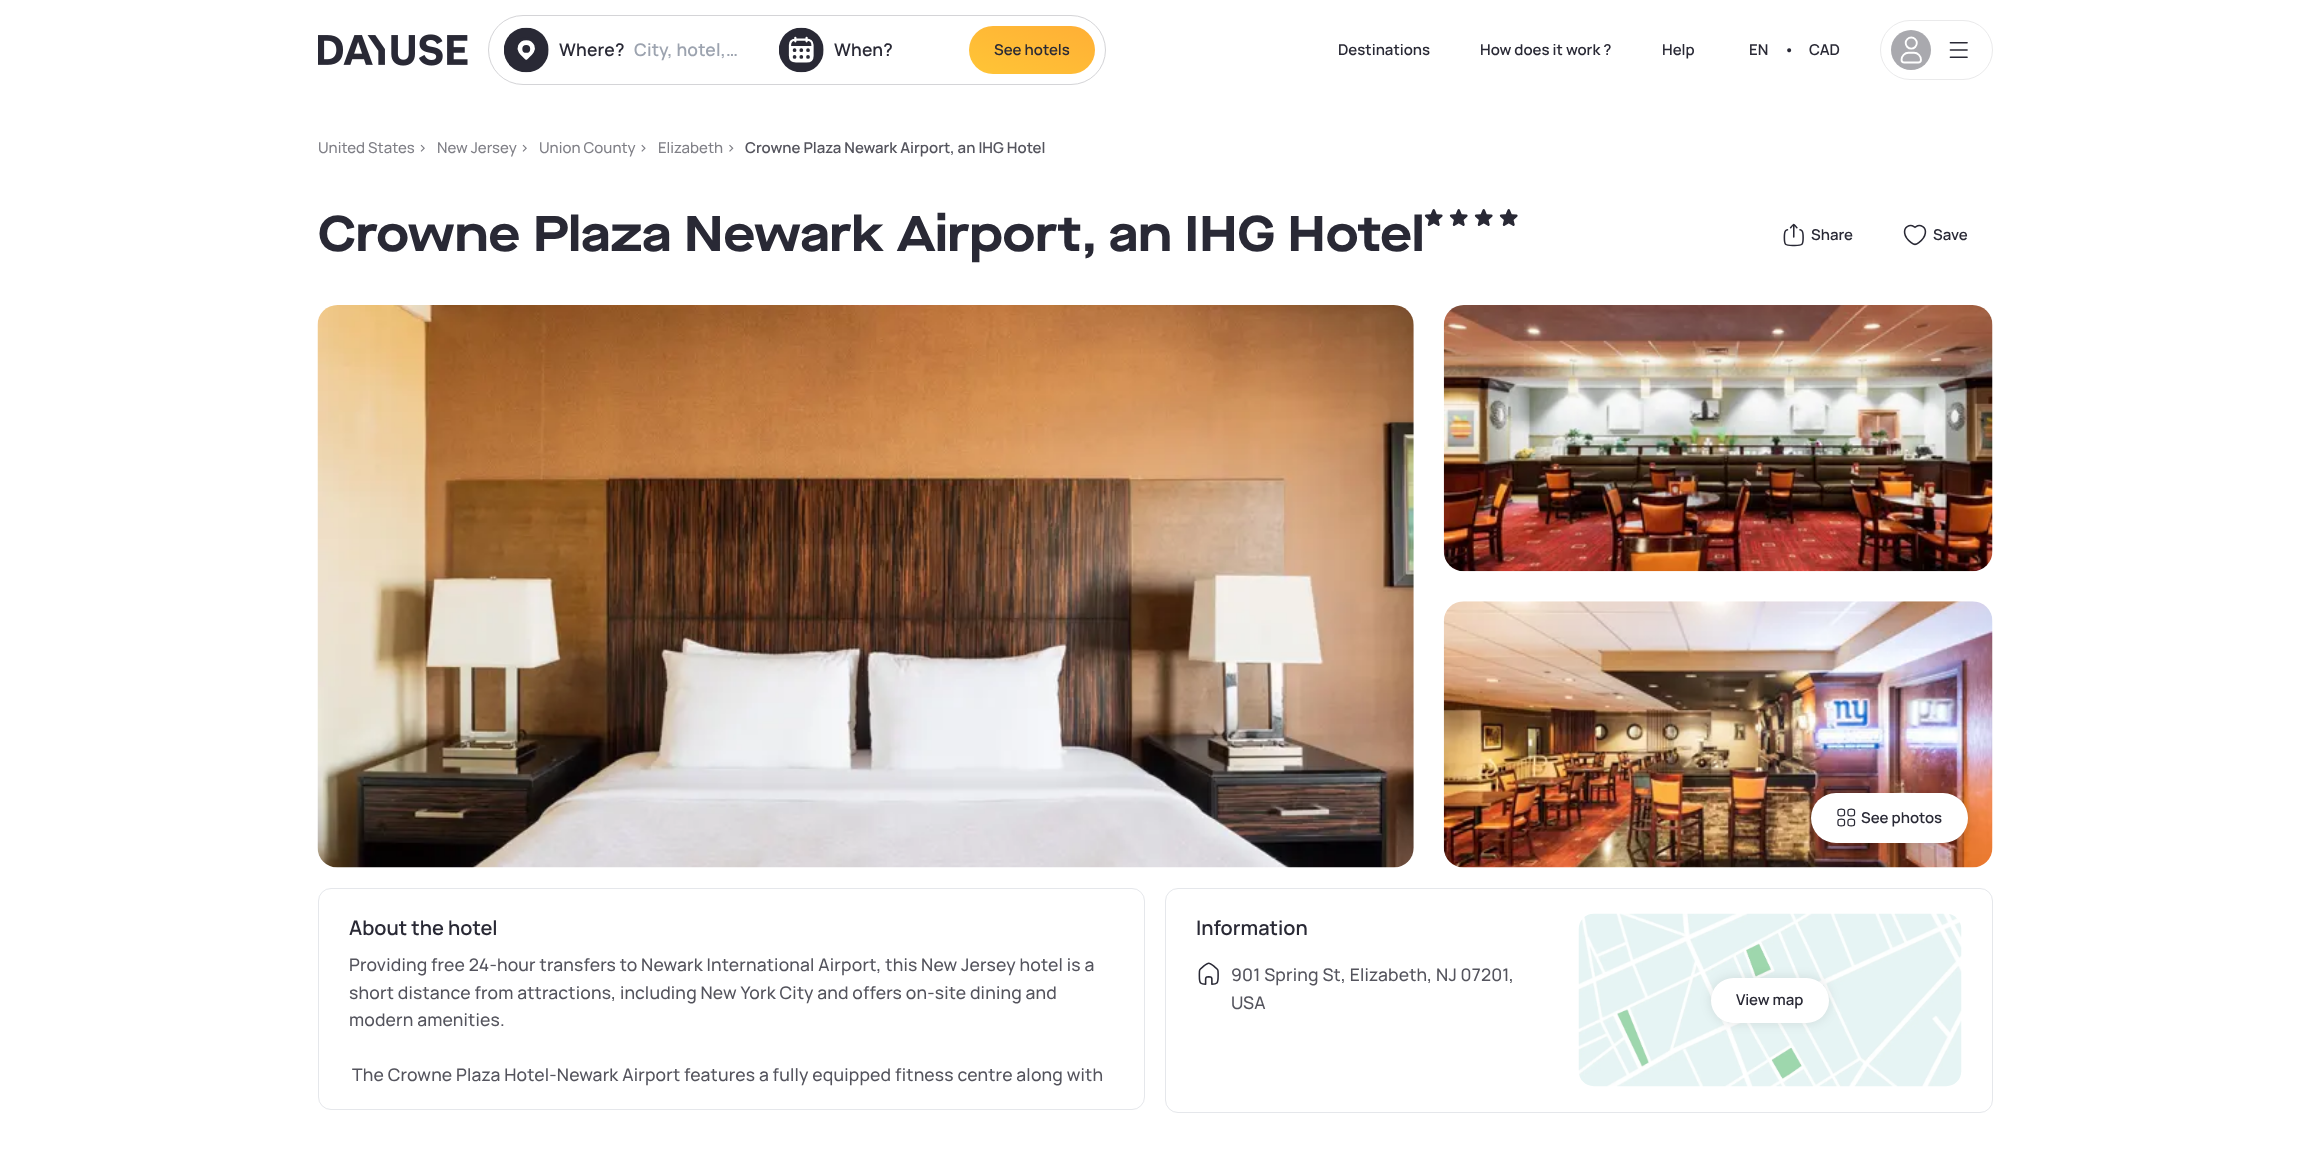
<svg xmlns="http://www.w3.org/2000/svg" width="2310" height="1164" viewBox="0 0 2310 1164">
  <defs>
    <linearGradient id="g1" gradientUnits="userSpaceOnUse" x1="1048" y1="8" x2="1016" y2="92"><stop offset="0" stop-color="rgb(255,175,54)"/><stop offset="1" stop-color="rgb(255,197,54)"/></linearGradient>
  </defs>
  <rect width="100%" height="100%" fill="rgb(255,255,255)"/>
  <image x="318" y="34" width="150" height="32" href="pic1.png"/>
  <rect x="488.5" y="15.5" width="617" height="69" rx="34.5" fill="none" stroke="rgb(212,212,215)"/>
  <image x="504" y="27" width="45" height="46" href="pic2.png"/>
  <text x="559" y="56" font-family="Manrope" font-size="17.5" font-weight="600" letter-spacing="0.18" fill="rgb(41,41,53)">Where?</text>
  <text x="634" y="56" font-family="Manrope" font-size="17.5" font-weight="600" letter-spacing="0.18" fill="rgb(156,163,175)">City, hotel,…</text>
  <image x="779" y="27" width="45" height="46" href="pic3.png"/>
  <text x="834" y="56" font-family="Manrope" font-size="17.5" font-weight="600" letter-spacing="0.18" fill="rgb(41,41,53)">When?</text>
  <rect x="969" y="26" width="126" height="48" rx="24" fill="url(#g1)"/>
  <g font-family="Manrope" font-size="15" font-weight="600" fill="rgb(41,41,53)">
    <text x="994" y="55">See hotels</text>
    <text x="1338" y="55">Destinations</text>
    <text x="1480" y="55">How does it work ?</text>
    <text x="1662" y="55">Help</text>
    <text x="1749" y="55">EN</text>
    <text x="1784" y="55">•</text>
    <text x="1809" y="55">CAD</text>
  </g>
  <rect x="1880.5" y="20.5" width="112" height="59" rx="29.5" fill="none" stroke="rgb(234,234,235)"/>
  <circle cx="1911" cy="50" r="20" fill="rgb(169,169,174)"/>
  <image x="1900" y="36" width="22" height="28" href="pic4.png"/>
  <image x="1949" y="42" width="19" height="16" href="pic5.png"/>
  <g font-family="Manrope" font-size="15" font-weight="500" fill="rgb(127,127,134)">
    <text x="318" y="153">United States &gt;</text>
    <text x="437" y="153">New Jersey &gt;</text>
    <text x="539" y="153">Union County &gt;</text>
    <text x="658" y="153">Elizabeth &gt;</text>
  </g>
  <text x="745" y="153" font-family="Manrope" font-size="15" font-weight="600" fill="rgb(84,84,93)">Crowne Plaza Newark Airport, an IHG Hotel</text>
  <text x="318" y="251" font-family="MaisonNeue" font-size="50" font-weight="bold" fill="rgb(41,41,53)">Crowne Plaza Newark Airport, an IHG Hotel</text>
  <image x="1424" y="209" width="19" height="17" href="pic6.png"/>
  <image x="1449" y="209" width="19" height="17" href="pic6.png"/>
  <image x="1474" y="209" width="19" height="17" href="pic6.png"/>
  <image x="1499" y="209" width="19" height="17" href="pic6.png"/>
  <image x="1783" y="223" width="21" height="24" href="pic7.png"/>
  <text x="1811" y="240" font-family="Manrope" font-size="15" font-weight="600" fill="rgb(41,41,53)">Share</text>
  <image x="1903" y="224" width="24" height="22" href="pic8.png"/>
  <text x="1933" y="240" font-family="Manrope" font-size="15" font-weight="600" fill="rgb(41,41,53)">Save</text>
  <image x="317" y="305" width="1097" height="563" href="pic9.png"/>
  <image x="1443" y="305" width="550" height="267" href="pic10.png"/>
  <image x="1443" y="601" width="550" height="267" href="pic11.png"/>
  <rect x="1811" y="793" width="157" height="50" rx="25" fill="rgba(0,0,0,0.1)" filter="blur(6px)"/>
  <rect x="1811" y="793" width="157" height="50" rx="25" fill="rgb(255,255,255)"/>
  <image x="1837" y="808" width="19" height="19" href="pic12.png"/>
  <text x="1861" y="823" font-family="Manrope" font-size="15" font-weight="600" fill="rgb(41,41,53)">See photos</text>
  <rect x="318.5" y="888.5" width="826" height="221" rx="12.5" fill="none" stroke="rgb(229,231,235)"/>
  <text x="349" y="935" font-family="Manrope" font-size="20" font-weight="600" fill="rgb(41,41,53)">About the hotel</text>
  <g font-family="Manrope" font-size="17.5" font-weight="500" letter-spacing="0.18" fill="rgb(84,84,93)">
    <text>
      <tspan x="349" y="971">Providing free 24-hour transfers to Newark International Airport, this New Jersey hotel is a</tspan>
      <tspan x="349" y="999">short distance from attractions, including New York City and offers on-site dining and</tspan>
      <tspan x="349" y="1026">modern amenities.</tspan>
    </text>
    <text x="352" y="1081">The Crowne Plaza Hotel-Newark Airport features a fully equipped fitness centre along with</text>
  </g>
  <rect x="1165.5" y="888.5" width="827" height="224" rx="12.5" fill="none" stroke="rgb(229,231,235)"/>
  <text x="1196" y="935" font-family="Manrope" font-size="20" font-weight="600" fill="rgb(41,41,53)">Information</text>
  <image x="1198" y="962" width="21" height="23" href="pic13.png"/>
  <g font-family="Manrope" font-size="17.5" font-weight="500" letter-spacing="0.18" fill="rgb(84,84,93)">
    <text>
      <tspan x="1231" y="981">901 Spring St, Elizabeth, NJ 07201,</tspan>
      <tspan x="1231" y="1009">USA</tspan>
    </text>
  </g>
  <image x="1578" y="913" width="384" height="174" href="pic14.png"/>
  <rect x="1711" y="978" width="118" height="45" rx="22.5" fill="rgba(0,0,0,0.1)" filter="blur(6px)"/>
  <rect x="1711" y="978" width="118" height="45" rx="22.5" fill="rgb(255,255,255)"/>
  <text x="1736" y="1005" font-family="Manrope" font-size="15" font-weight="600" fill="rgb(41,41,53)">View map</text>
</svg>
